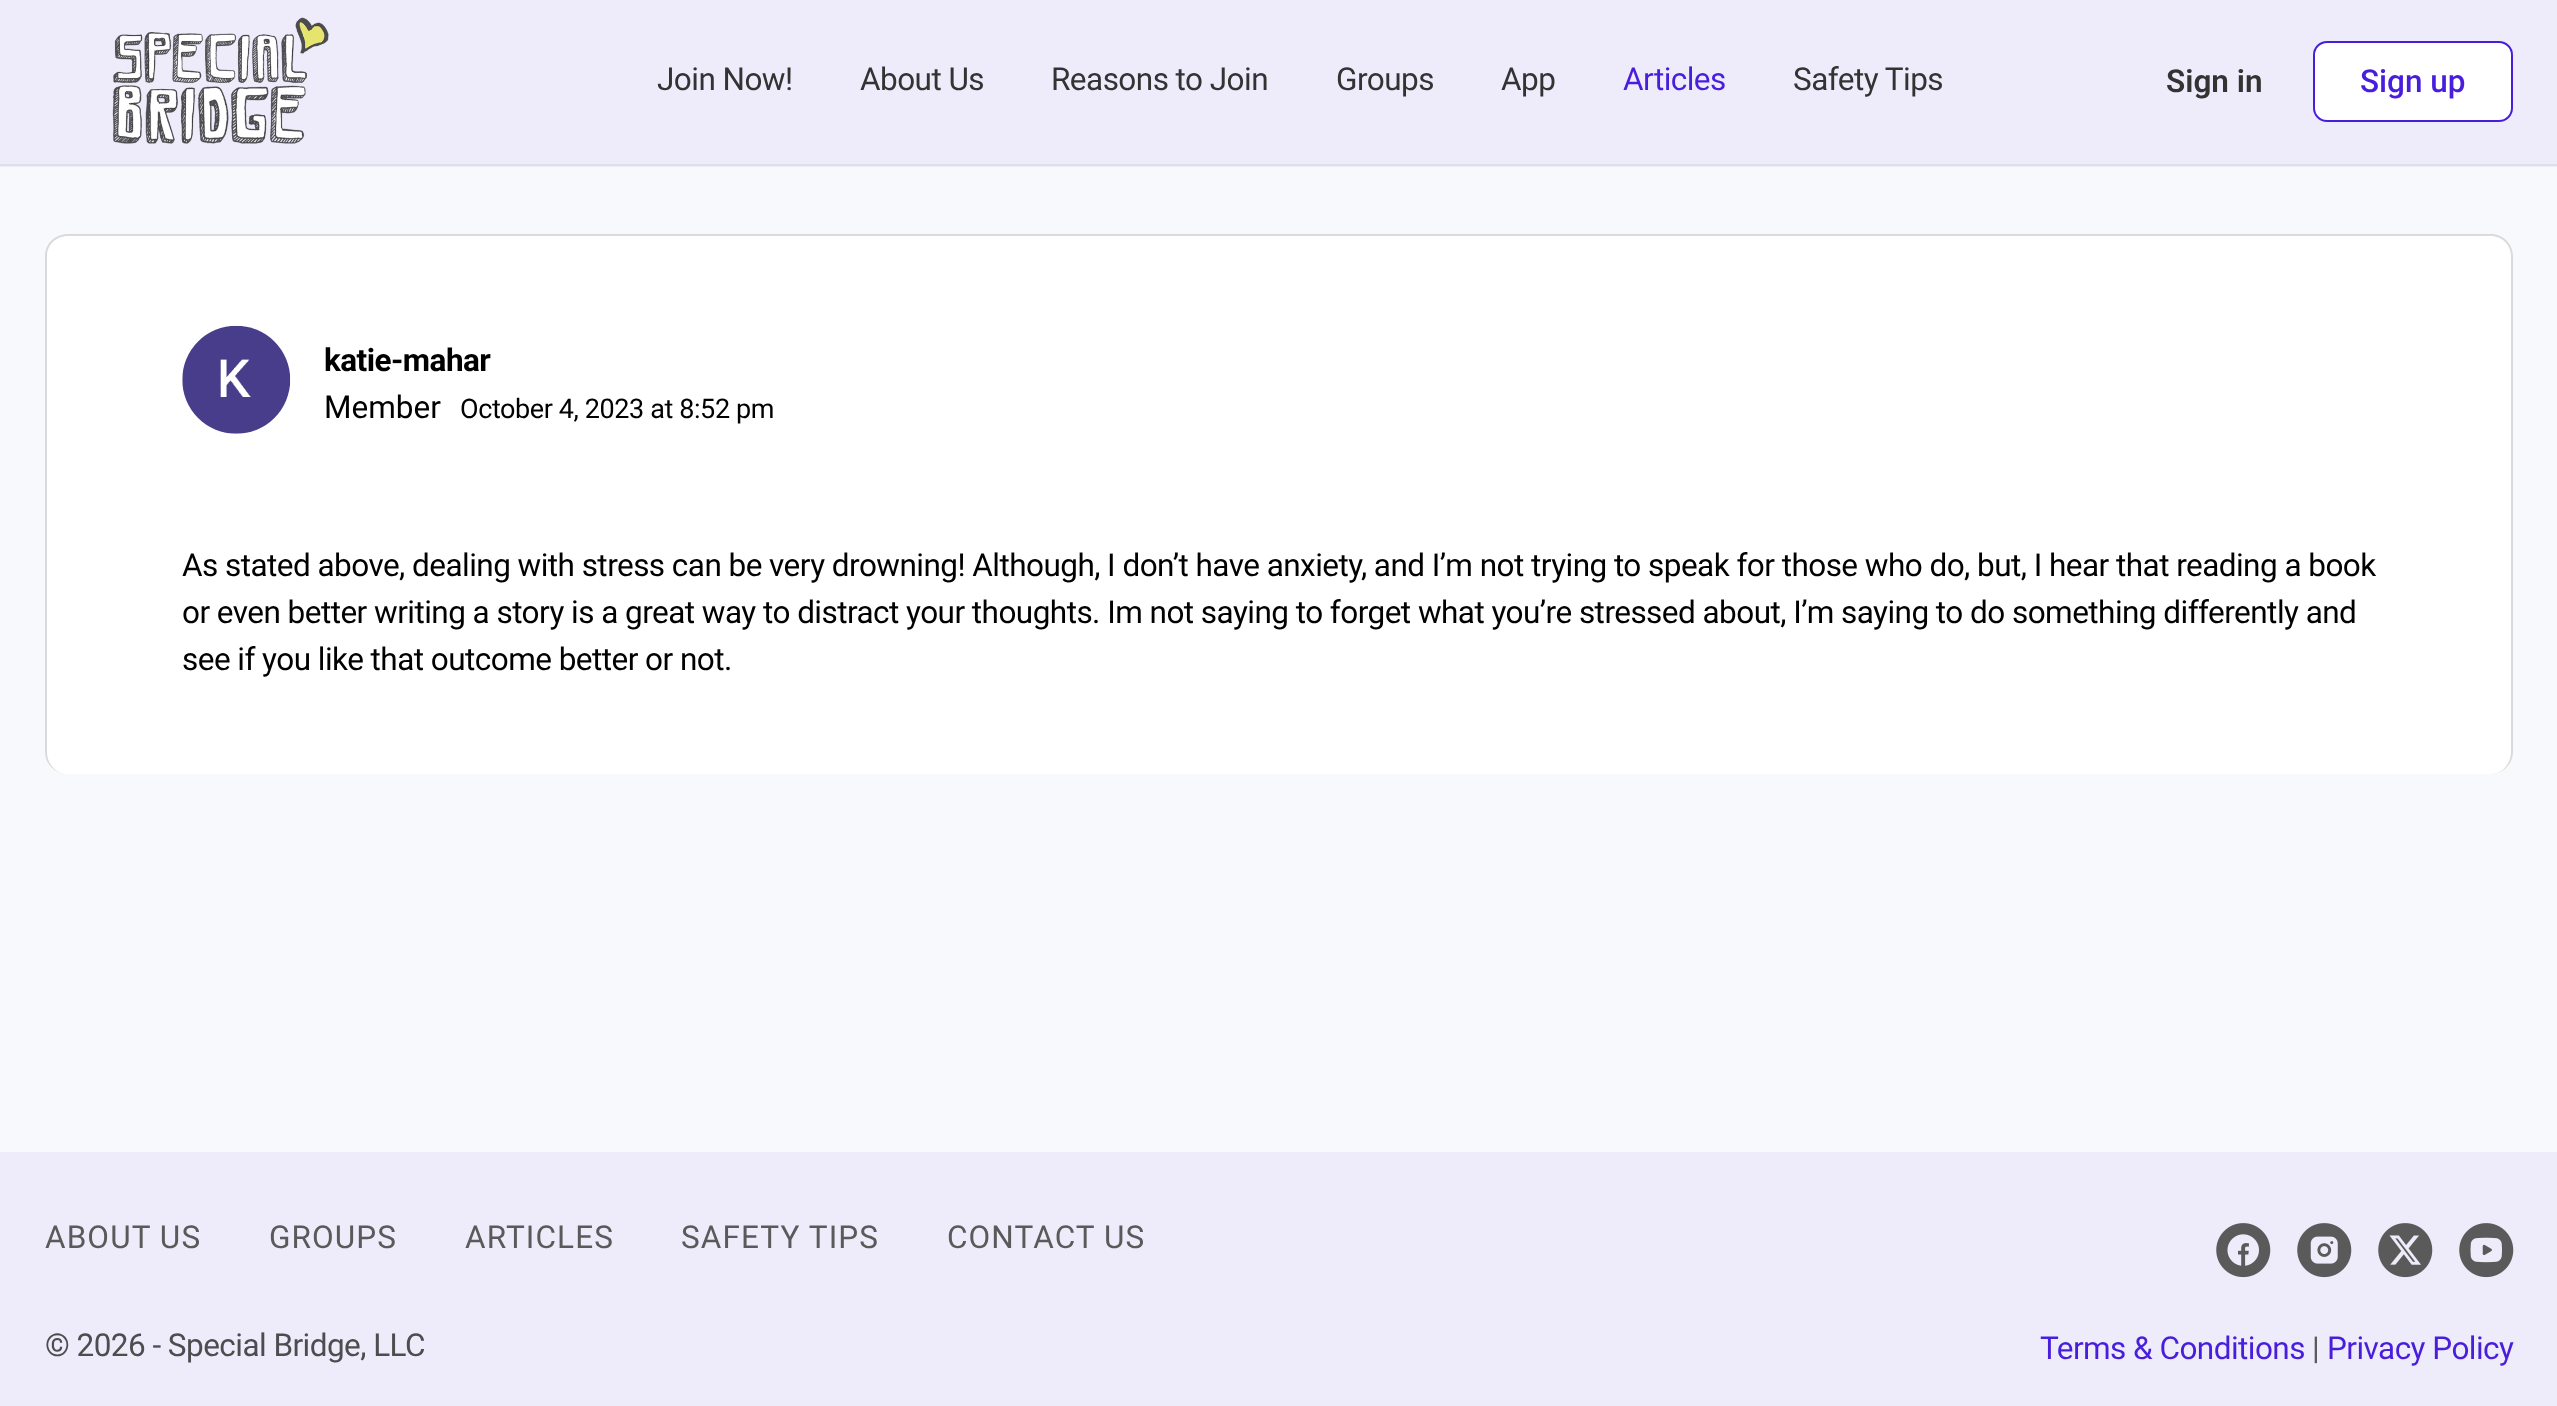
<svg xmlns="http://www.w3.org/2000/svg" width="2557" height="1406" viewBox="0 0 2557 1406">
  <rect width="100%" height="100%" fill="rgb(247,249,252)"/>
  <rect x="0" y="0" width="2557" height="167" fill="rgb(238,235,250)"/>
  <rect x="0" y="164" width="2557" height="2" fill="rgb(220,223,227)"/>
  <image x="112" y="17" width="217" height="127" href="pic1.png"/>
  <g font-family="Roboto" font-size="31.5" letter-spacing="-0.54" fill="rgb(51,51,51)">
    <text x="657" y="90">Join Now!</text>
    <text x="860" y="90">About Us</text>
    <text x="1051" y="90">Reasons to Join</text>
    <text x="1336" y="90">Groups</text>
    <text x="1501" y="90">App</text>
  </g>
  <text x="1623" y="90" font-family="Roboto" font-size="31.5" letter-spacing="-0.54" fill="rgb(72,29,220)">Articles</text>
  <text x="1793" y="90" font-family="Roboto" font-size="31.5" letter-spacing="-0.54" fill="rgb(51,51,51)">Safety Tips</text>
  <text x="2166" y="92" font-family="Roboto" font-size="31.5" font-weight="600" fill="rgb(51,51,51)">Sign in</text>
  <rect x="2314" y="42" width="198" height="79" rx="13" fill="rgb(255,255,255)" stroke="rgb(72,29,220)" stroke-width="2"/>
  <text x="2360" y="92" font-family="Roboto" font-size="31.5" font-weight="500" fill="rgb(72,29,220)">Sign up</text>
  <rect x="45" y="234" width="2468" height="540" rx="23" fill="rgb(255,255,255)"/>
  <path d="M68 234H2491C2503 234 2513 244 2513 256V752C2513 764 2503 774 2491 774H68C55 774 45 764 45 752V256C45 244 55 234 68 234ZM68 236H2491C2502 236 2511 245 2511 256V752C2511 764 2502 774 2491 774H68C56 774 47 764 47 752V256C47 245 56 236 68 236Z" fill="rgb(218,218,218)" fill-rule="evenodd"/>
  <image x="182" y="325" width="109" height="109" href="pic2.png"/>
  <text x="324" y="371" font-family="Roboto" font-size="31.5" font-weight="bold" letter-spacing="-0.54" fill="rgb(0,0,0)">katie-mahar</text>
  <text x="324" y="418" font-family="Roboto" font-size="31.5" fill="rgb(0,0,0)">Member</text>
  <text x="460" y="418" font-family="Roboto" font-size="27" letter-spacing="-0.4" fill="rgb(0,0,0)">October 4, 2023 at 8:52 pm</text>
  <g font-family="Roboto" font-size="31.5" letter-spacing="-0.54" fill="rgb(0,0,0)">
    <text>
      <tspan x="182" y="576">As stated above, dealing with stress can be very drowning! Although, I don’t have anxiety, and I’m not trying to speak for those who do, but, I hear that reading a book</tspan>
      <tspan x="182" y="623">or even better writing a story is a great way to distract your thoughts. Im not saying to forget what you’re stressed about, I’m saying to do something differently and</tspan>
      <tspan x="182" y="670">see if you like that outcome better or not.</tspan>
    </text>
  </g>
  <rect x="0" y="1152" width="2557" height="254" fill="rgb(238,235,250)"/>
  <g font-family="Roboto" font-size="31.5" letter-spacing="1.1" fill="rgb(90,90,90)">
    <text x="45" y="1248">ABOUT US</text>
    <text x="269" y="1248">GROUPS</text>
    <text x="465" y="1248">ARTICLES</text>
    <text x="681" y="1248">SAFETY TIPS</text>
    <text x="947" y="1248">CONTACT US</text>
  </g>
  <text x="45" y="1356" font-family="Roboto" font-size="31.5" letter-spacing="-0.54" fill="rgb(77,76,79)">© 2026 - Special Bridge, LLC</text>
  <image x="2216" y="1223" width="55" height="55" href="pic3.png"/>
  <image x="2297" y="1223" width="55" height="55" href="pic4.png"/>
  <image x="2378" y="1223" width="55" height="55" href="pic5.png"/>
  <image x="2459" y="1223" width="55" height="55" href="pic6.png"/>
  <text x="2040" y="1359" font-family="Roboto" font-size="31.5" letter-spacing="-0.54" fill="rgb(72,29,220)">Terms &amp; Conditions</text>
  <text x="2312" y="1359" font-family="Roboto" font-size="31.5" letter-spacing="-0.54" fill="rgb(90,90,90)">|</text>
  <text x="2327" y="1359" font-family="Roboto" font-size="31.5" letter-spacing="-0.54" fill="rgb(72,29,220)">Privacy Policy</text>
</svg>
